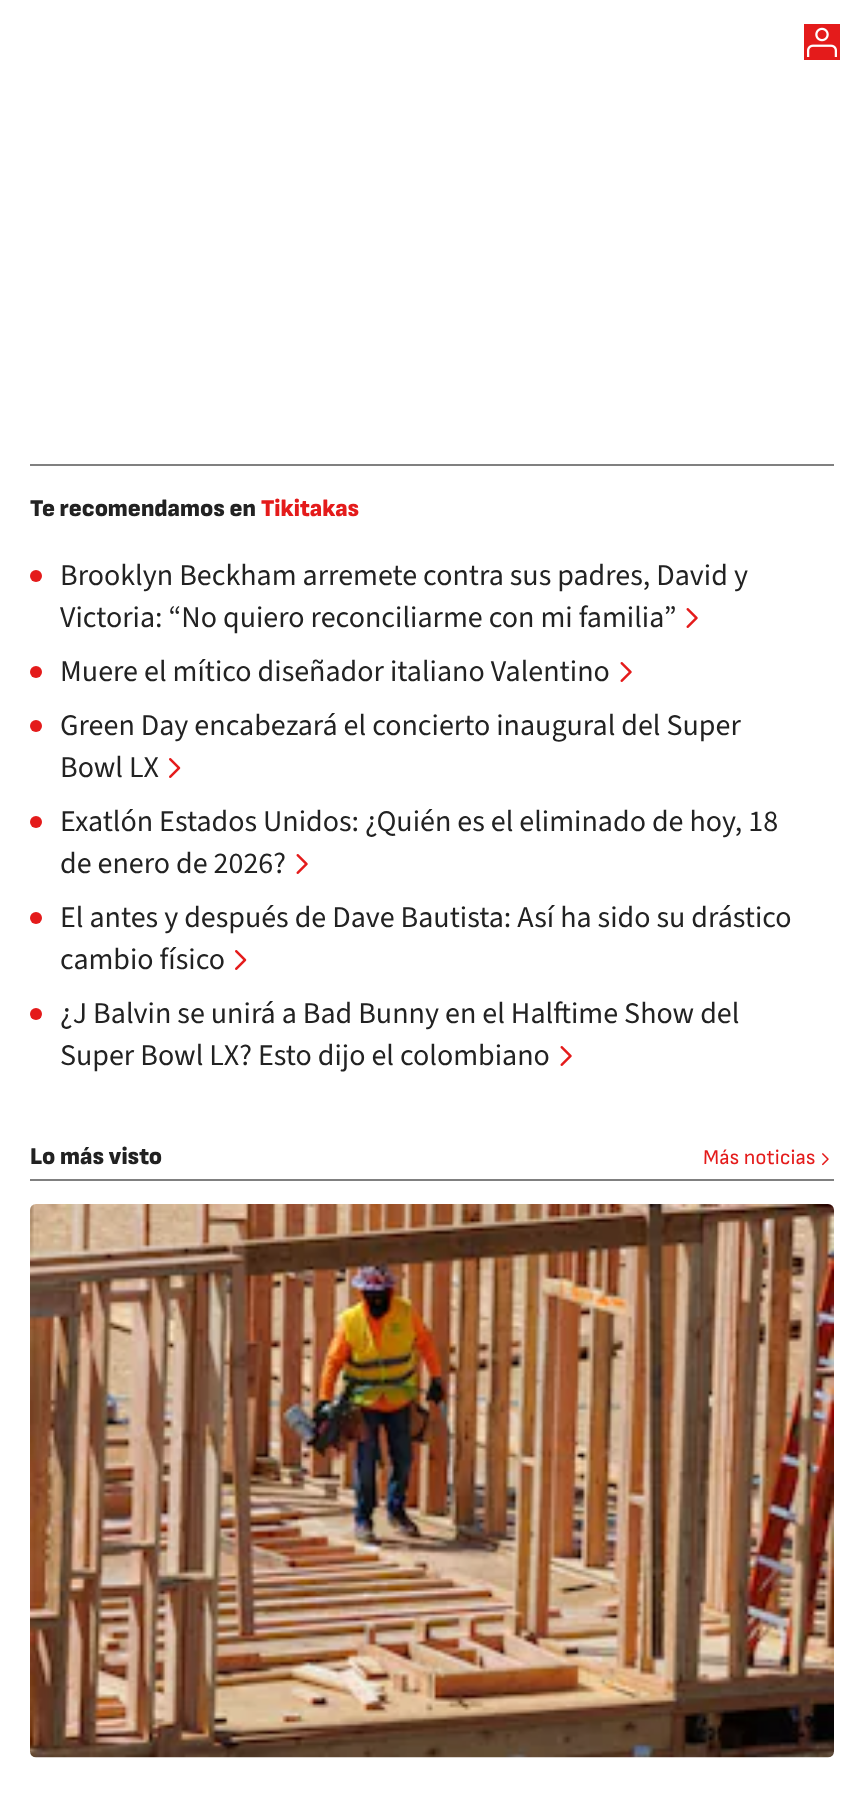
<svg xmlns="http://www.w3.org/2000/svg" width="864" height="1793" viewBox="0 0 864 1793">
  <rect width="100%" height="100%" fill="rgb(255,255,255)"/>
  <rect x="804" y="24" width="36" height="36" fill="rgb(228,27,27)"/>
  <image x="807" y="27" width="30" height="30" href="pic1.png"/>
  <rect x="30" y="464" width="804" height="2" fill="rgb(128,128,128)"/>
  <text x="30" y="516" font-family="Sofia Sans" font-size="24" font-weight="900" fill="rgb(34,34,34)">Te recomendamos en</text>
  <text x="261" y="516" font-family="Sofia Sans" font-size="24" font-weight="900" fill="rgb(228,27,27)">Tikitakas</text>
  <circle cx="36" cy="576" r="6" fill="rgb(228,27,27)"/>
  <g font-family="'Source Sans 3'" font-size="30" font-weight="200" fill="rgb(34,34,34)">
    <text>
      <tspan x="60" y="585">Brooklyn Beckham arremete contra sus padres, David y</tspan>
      <tspan x="60" y="627">Victoria: “No quiero reconciliarme con mi familia”</tspan>
    </text>
  </g>
  <image x="686" y="608" width="12" height="20" href="pic2.png"/>
  <circle cx="36" cy="672" r="6" fill="rgb(228,27,27)"/>
  <text x="60" y="681" font-family="'Source Sans 3'" font-size="30" font-weight="200" fill="rgb(34,34,34)">Muere el mítico diseñador italiano Valentino</text>
  <image x="620" y="662" width="12" height="20" href="pic2.png"/>
  <circle cx="36" cy="726" r="6" fill="rgb(228,27,27)"/>
  <g font-family="'Source Sans 3'" font-size="30" font-weight="200" fill="rgb(34,34,34)">
    <text>
      <tspan x="60" y="735">Green Day encabezará el concierto inaugural del Super</tspan>
      <tspan x="60" y="777">Bowl LX</tspan>
    </text>
  </g>
  <image x="169" y="758" width="12" height="20" href="pic3.png"/>
  <circle cx="36" cy="822" r="6" fill="rgb(228,27,27)"/>
  <g font-family="'Source Sans 3'" font-size="30" font-weight="200" fill="rgb(34,34,34)">
    <text>
      <tspan x="60" y="831">Exatlón Estados Unidos: ¿Quién es el eliminado de hoy, 18</tspan>
      <tspan x="60" y="873">de enero de 2026?</tspan>
    </text>
  </g>
  <image x="296" y="854" width="12" height="20" href="pic2.png"/>
  <circle cx="36" cy="918" r="6" fill="rgb(228,27,27)"/>
  <g font-family="'Source Sans 3'" font-size="30" font-weight="200" fill="rgb(34,34,34)">
    <text>
      <tspan x="60" y="927">El antes y después de Dave Bautista: Así ha sido su drástico</tspan>
      <tspan x="60" y="969">cambio físico</tspan>
    </text>
  </g>
  <image x="235" y="950" width="12" height="20" href="pic3.png"/>
  <circle cx="36" cy="1014" r="6" fill="rgb(228,27,27)"/>
  <g font-family="'Source Sans 3'" font-size="30" font-weight="200" fill="rgb(34,34,34)">
    <text>
      <tspan x="60" y="1023">¿J Balvin se unirá a Bad Bunny en el Halftime Show del</tspan>
      <tspan x="60" y="1065">Super Bowl LX? Esto dijo el colombiano</tspan>
    </text>
  </g>
  <image x="560" y="1046" width="12" height="20" href="pic2.png"/>
  <text x="30" y="1164" font-family="Sofia Sans" font-size="24" font-weight="900" fill="rgb(34,34,34)">Lo más visto</text>
  <text x="703" y="1164" font-family="Sofia Sans" font-size="21" fill="rgb(228,27,27)">Más noticias</text>
  <image x="822" y="1153" width="7" height="13" href="pic4.png"/>
  <rect x="30" y="1179" width="804" height="2" fill="rgb(128,128,128)"/>
  <image x="30" y="1204" width="804" height="554" href="pic5.png"/>
</svg>
